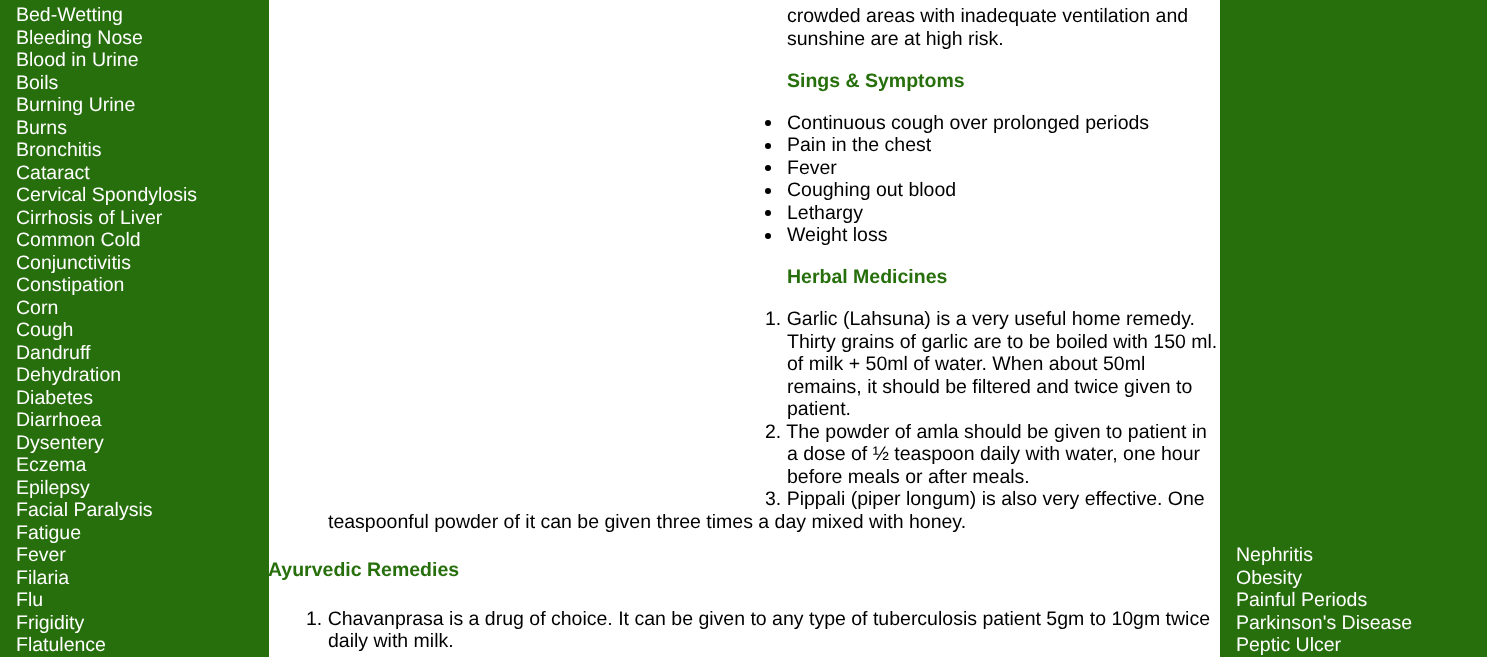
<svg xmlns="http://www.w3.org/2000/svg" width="1487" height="657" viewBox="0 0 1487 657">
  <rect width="100%" height="100%" fill="rgb(255,255,255)"/>
  <rect x="0" y="0" width="269" height="657" fill="rgb(39,111,12)"/>
  <g font-family="Liberation Sans" font-size="19.5" fill="rgb(255,255,255)">
    <text>
      <tspan x="16" y="21">Bed-Wetting</tspan>
      <tspan x="16" y="44">Bleeding Nose</tspan>
      <tspan x="16" y="66">Blood in Urine</tspan>
      <tspan x="16" y="89">Boils</tspan>
      <tspan x="16" y="111">Burning Urine</tspan>
      <tspan x="16" y="134">Burns</tspan>
      <tspan x="16" y="156">Bronchitis</tspan>
      <tspan x="16" y="179">Cataract</tspan>
      <tspan x="16" y="201">Cervical Spondylosis</tspan>
      <tspan x="16" y="224">Cirrhosis of Liver</tspan>
      <tspan x="16" y="246">Common Cold</tspan>
      <tspan x="16" y="269">Conjunctivitis</tspan>
      <tspan x="16" y="291">Constipation</tspan>
      <tspan x="16" y="314">Corn</tspan>
      <tspan x="16" y="336">Cough</tspan>
      <tspan x="16" y="359">Dandruff</tspan>
      <tspan x="16" y="381">Dehydration</tspan>
      <tspan x="16" y="404">Diabetes</tspan>
      <tspan x="16" y="426">Diarrhoea</tspan>
      <tspan x="16" y="449">Dysentery</tspan>
      <tspan x="16" y="471">Eczema</tspan>
      <tspan x="16" y="494">Epilepsy</tspan>
      <tspan x="16" y="516">Facial Paralysis</tspan>
      <tspan x="16" y="539">Fatigue</tspan>
      <tspan x="16" y="561">Fever</tspan>
      <tspan x="16" y="584">Filaria</tspan>
      <tspan x="16" y="606">Flu</tspan>
      <tspan x="16" y="629">Frigidity</tspan>
      <tspan x="16" y="651">Flatulence</tspan>
    </text>
  </g>
  <g font-family="Liberation Sans" font-size="19.5" fill="rgb(0,0,0)">
    <text>
      <tspan x="787" y="22">crowded areas with inadequate ventilation and</tspan>
      <tspan x="787" y="45">sunshine are at high risk.</tspan>
    </text>
  </g>
  <text x="787" y="87" font-family="Liberation Sans" font-size="19.5" font-weight="bold" fill="rgb(39,111,12)">Sings &amp; Symptoms</text>
  <circle cx="768" cy="123" r="3" fill="rgb(0,0,0)"/>
  <text x="787" y="129" font-family="Liberation Sans" font-size="19.5" fill="rgb(0,0,0)">Continuous cough over prolonged periods</text>
  <circle cx="768" cy="146" r="3" fill="rgb(0,0,0)"/>
  <text x="787" y="151" font-family="Liberation Sans" font-size="19.5" fill="rgb(0,0,0)">Pain in the chest</text>
  <circle cx="768" cy="168" r="3" fill="rgb(0,0,0)"/>
  <text x="787" y="174" font-family="Liberation Sans" font-size="19.5" fill="rgb(0,0,0)">Fever</text>
  <circle cx="768" cy="191" r="3" fill="rgb(0,0,0)"/>
  <text x="787" y="196" font-family="Liberation Sans" font-size="19.5" fill="rgb(0,0,0)">Coughing out blood</text>
  <circle cx="768" cy="213" r="3" fill="rgb(0,0,0)"/>
  <text x="787" y="219" font-family="Liberation Sans" font-size="19.5" fill="rgb(0,0,0)">Lethargy</text>
  <circle cx="768" cy="236" r="3" fill="rgb(0,0,0)"/>
  <text x="787" y="241" font-family="Liberation Sans" font-size="19.5" fill="rgb(0,0,0)">Weight loss</text>
  <text x="787" y="283" font-family="Liberation Sans" font-size="19.5" font-weight="bold" fill="rgb(39,111,12)">Herbal Medicines</text>
  <g font-family="Liberation Sans" font-size="19.5" fill="rgb(0,0,0)">
    <text x="765" y="325">1. Garlic (Lahsuna) is a very useful home remedy.</text>
    <text>
      <tspan x="787" y="348">Thirty grains of garlic are to be boiled with 150 ml.</tspan>
      <tspan x="787" y="370">of milk + 50ml of water. When about 50ml</tspan>
      <tspan x="787" y="393">remains, it should be filtered and twice given to</tspan>
      <tspan x="787" y="415">patient.</tspan>
    </text>
    <text x="765" y="438">2. The powder of amla should be given to patient in</text>
    <text>
      <tspan x="787" y="460">a dose of ½ teaspoon daily with water, one hour</tspan>
      <tspan x="787" y="483">before meals or after meals.</tspan>
    </text>
    <text x="765" y="505">3. Pippali (piper longum) is also very effective. One</text>
    <text x="328" y="528">teaspoonful powder of it can be given three times a day mixed with honey.</text>
  </g>
  <text x="268" y="576" font-family="Liberation Sans" font-size="19.5" font-weight="bold" fill="rgb(39,111,12)">Ayurvedic Remedies</text>
  <g font-family="Liberation Sans" font-size="19.5" fill="rgb(0,0,0)">
    <text x="306" y="625">1. Chavanprasa is a drug of choice. It can be given to any type of tuberculosis patient 5gm to 10gm twice</text>
    <text x="328" y="647">daily with milk.</text>
  </g>
  <rect x="1220" y="0" width="267" height="657" fill="rgb(39,111,12)"/>
  <g font-family="Liberation Sans" font-size="19.5" fill="rgb(255,255,255)">
    <text>
      <tspan x="1236" y="561">Nephritis</tspan>
      <tspan x="1236" y="584">Obesity</tspan>
      <tspan x="1236" y="606">Painful Periods</tspan>
      <tspan x="1236" y="629">Parkinson's Disease</tspan>
      <tspan x="1236" y="651">Peptic Ulcer</tspan>
    </text>
  </g>
</svg>
